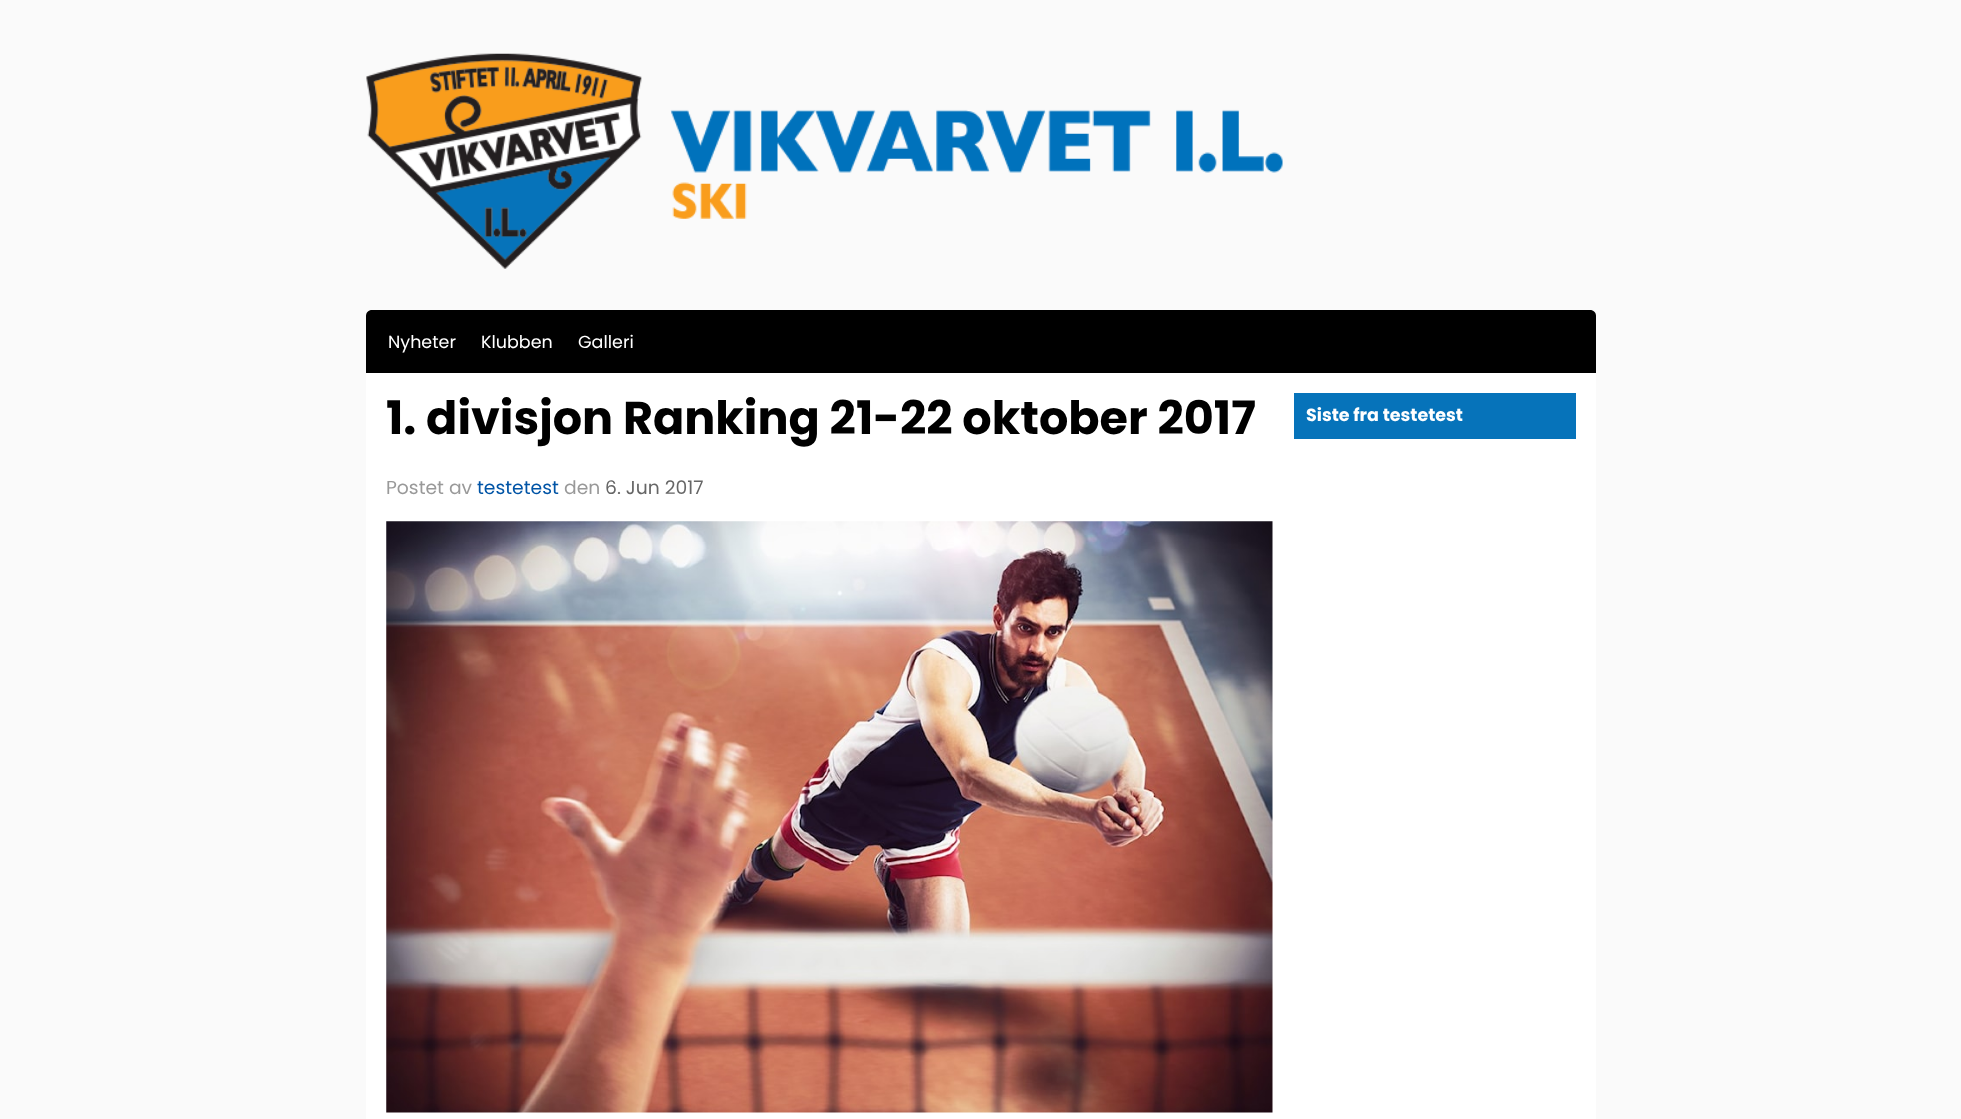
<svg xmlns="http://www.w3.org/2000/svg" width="1961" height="1119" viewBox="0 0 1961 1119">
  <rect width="100%" height="100%" fill="rgb(250,250,250)"/>
  <image x="366" y="53" width="917" height="216" href="pic1.png"/>
  <path d="M372 310H1590C1593.5 310 1596 312.5 1596 316V373H366V316C366 312.5 368.5 310 372 310Z" fill="rgb(0,0,0)"/>
  <g font-family="Poppins" font-size="17.5" fill="rgb(255,255,255)">
    <text x="388" y="348">Nyheter</text>
    <text x="481" y="348">Klubben</text>
    <text x="578" y="348">Galleri</text>
  </g>
  <rect x="366" y="373" width="1230" height="746" fill="rgb(255,255,255)"/>
  <text x="386" y="434" font-family="Poppins" font-size="46.1" font-weight="bold" fill="rgb(0,0,0)">1. divisjon Ranking 21-22 oktober 2017</text>
  <text x="386" y="494" font-family="Poppins" font-size="18.75" fill="rgb(153,153,153)">Postet av</text>
  <text x="477" y="494" font-family="Poppins" font-size="18.75" fill="rgb(0,84,166)">testetest</text>
  <text x="564" y="494" font-family="Poppins" font-size="18.75" fill="rgb(153,153,153)">den</text>
  <text x="605" y="494" font-family="Poppins" font-size="18.75" fill="rgb(102,102,102)">6. Jun 2017</text>
  <image x="386" y="521" width="887" height="592" href="pic2.png"/>
  <rect x="1294" y="393" width="282" height="46" fill="rgb(6,115,186)"/>
  <text x="1306" y="421" font-family="Poppins" font-size="17.5" font-weight="bold" fill="rgb(255,255,255)">Siste fra testetest</text>
</svg>
